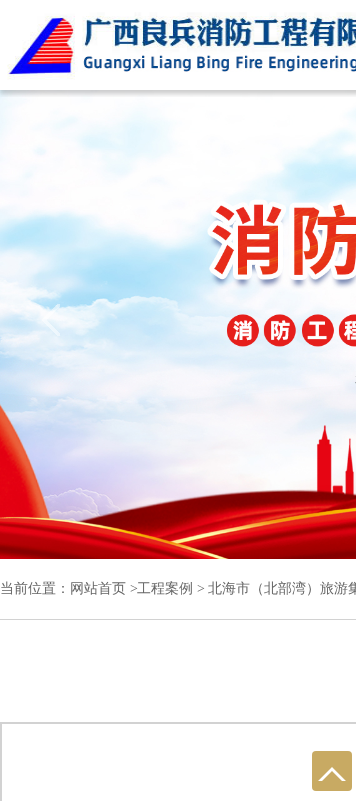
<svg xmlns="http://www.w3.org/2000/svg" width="356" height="801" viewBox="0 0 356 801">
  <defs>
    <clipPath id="clip1"><rect x="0" y="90" width="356" height="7"/></clipPath>
  </defs>
  <rect width="100%" height="100%" fill="rgb(255,255,255)"/>
  <image x="0" y="90" width="356" height="469" href="pic2.png"/>
  <g clip-path="url(#clip1)">
    <rect x="0" y="4" width="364" height="90" fill="rgba(0,0,0,0.2)" filter="blur(2.5px)"/>
  </g>
  <image x="7" y="12" width="349" height="68" href="pic1.png"/>
  <image x="42" y="304" width="18" height="32" href="pic3.png"/>
  <rect x="0" y="619" width="356" height="1" fill="rgb(210,210,210)"/>
  <text x="0" y="593" font-family="WenQuanYi Zen Hei" font-size="14" font-weight="500" fill="rgb(102,102,102)">当前位置：网站首页</text>
  <text x="130" y="593" font-family="Liberation Serif" font-size="14" fill="rgb(102,102,102)">&gt;</text>
  <text x="137" y="593" font-family="WenQuanYi Zen Hei" font-size="14" font-weight="500" fill="rgb(102,102,102)">工程案例</text>
  <text x="197" y="593" font-family="Liberation Serif" font-size="14" fill="rgb(102,102,102)">&gt;</text>
  <text x="208" y="593" font-family="WenQuanYi Zen Hei" font-size="14" font-weight="500" fill="rgb(102,102,102)">北海市（北部湾）旅游集</text>
  <rect x="1" y="723" width="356" height="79" fill="none" stroke="rgb(210,210,210)" stroke-width="2"/>
  <rect x="312" y="751" width="40" height="40" rx="4" fill="rgb(200,170,99)"/>
  <path d="M332 767L346 781H342L332 771ZM318 781L332 767V771L322 781Z" fill="rgb(255,255,255)"/>
</svg>
